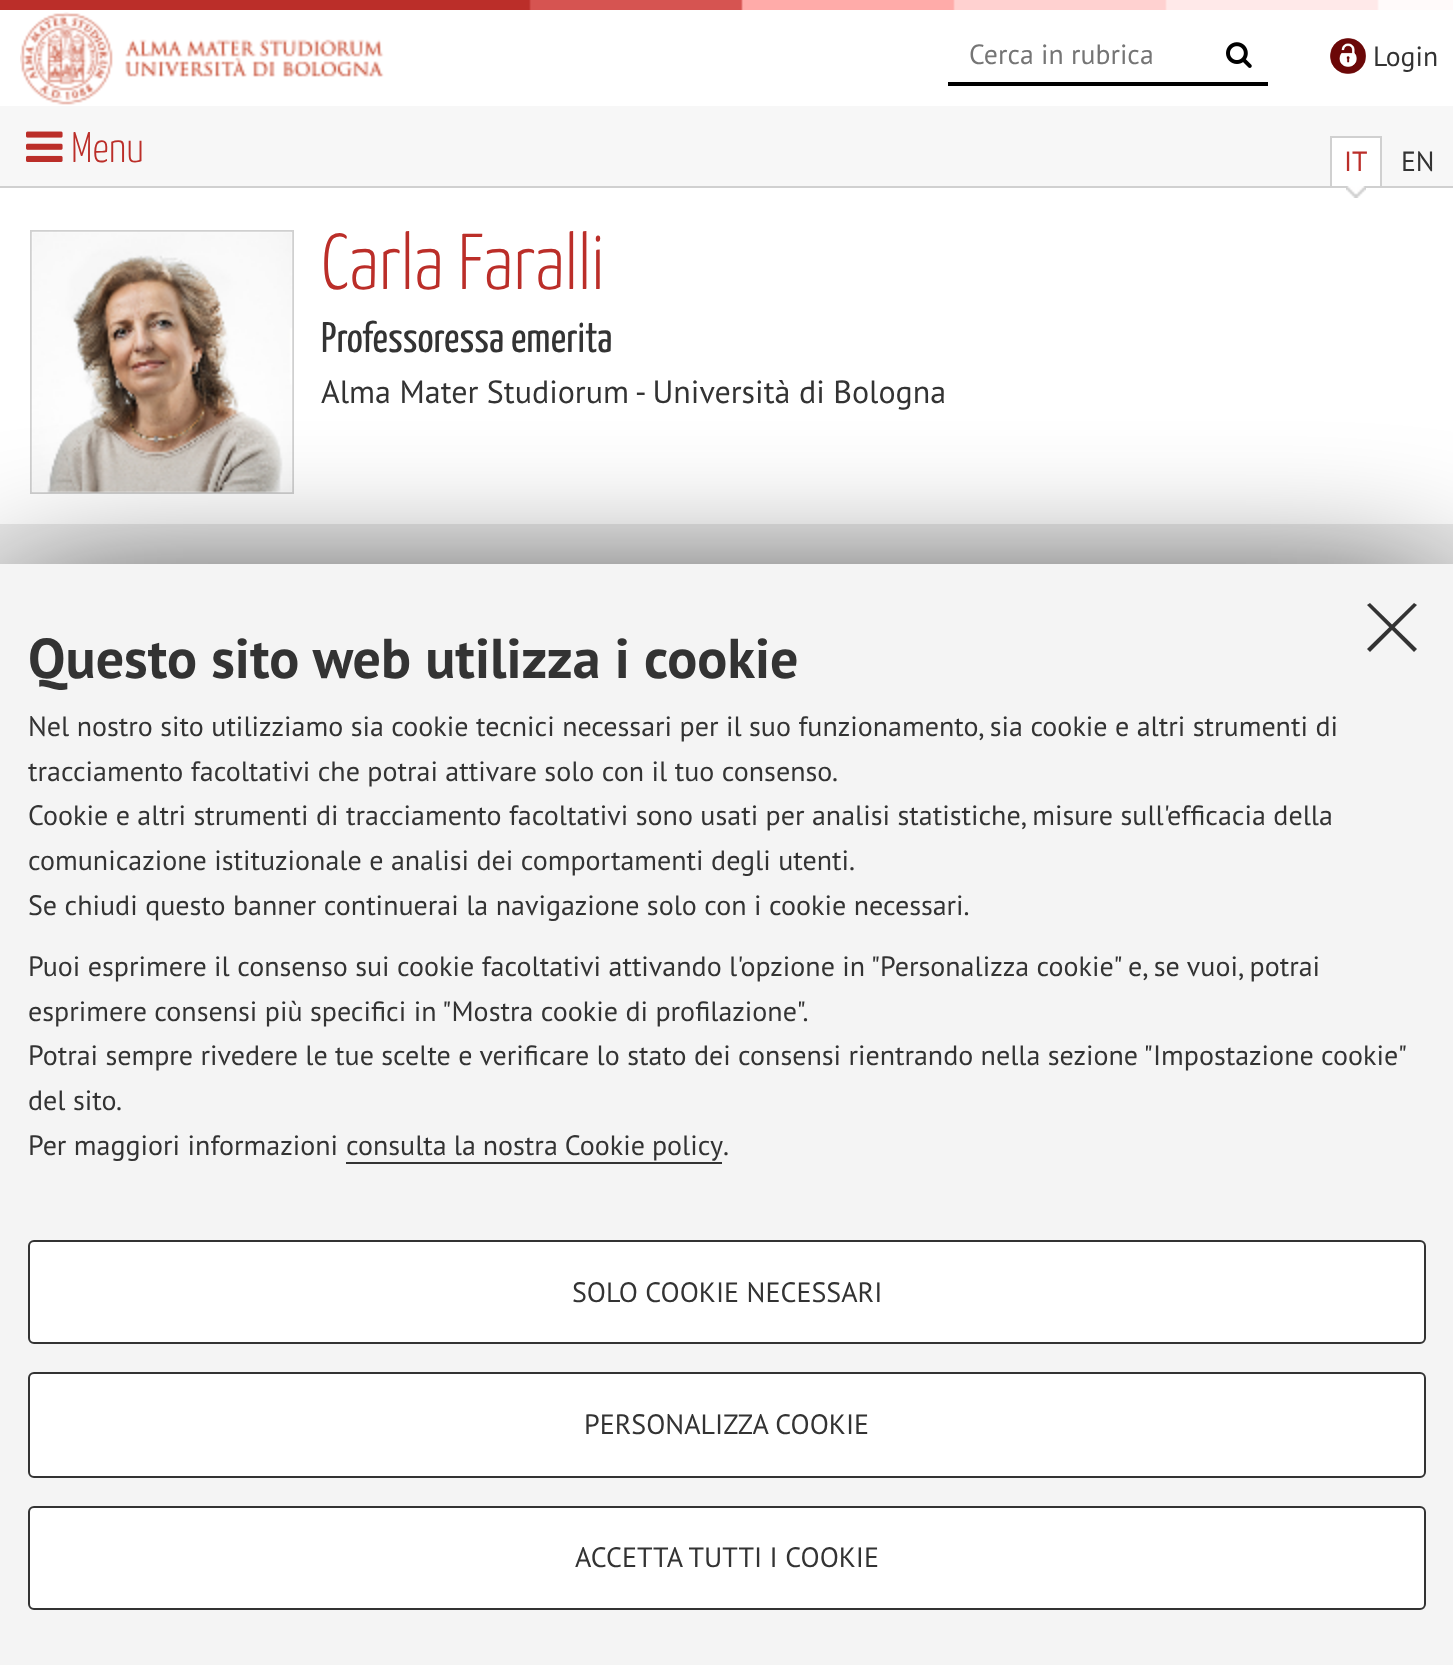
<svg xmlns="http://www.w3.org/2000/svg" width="1453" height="1665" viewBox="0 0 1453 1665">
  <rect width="100%" height="100%" fill="rgb(234,234,234)"/>
  <image x="0" y="0" width="1453" height="10" href="pic1.png"/>
  <rect x="0" y="10" width="1453" height="96" fill="rgb(255,255,255)"/>
  <image x="20" y="12" width="364" height="93" href="pic2.png"/>
  <rect x="948" y="82" width="320" height="4" fill="rgb(0,0,0)"/>
  <text x="969" y="64" font-family="PT Sans" font-size="27.75" fill="rgb(117,117,117)">Cerca in rubrica</text>
  <image x="1226" y="42" width="26" height="26" href="pic3.png"/>
  <image x="1330" y="38" width="36" height="36" href="pic4.png"/>
  <text x="1373" y="66" font-family="PT Sans" font-size="27.75" fill="rgb(51,51,51)">Login</text>
  <rect x="0" y="106" width="1453" height="80" fill="rgb(247,247,247)"/>
  <rect x="0" y="186" width="1453" height="2" fill="rgb(208,208,208)"/>
  <image x="26" y="131" width="37" height="31" href="pic5.png"/>
  <text x="71" y="162" font-family="Yanone Kaffeesatz" font-size="42.75" font-weight="300" fill="rgb(187,46,41)">Menu</text>
  <rect x="1332" y="138" width="48" height="48" fill="rgb(255,255,255)"/>
  <rect x="1330" y="136" width="52" height="2" fill="rgb(208,208,208)"/>
  <rect x="1380" y="136" width="2" height="50" fill="rgb(208,208,208)"/>
  <rect x="1330" y="136" width="2" height="50" fill="rgb(208,208,208)"/>
  <text x="1344" y="171" font-family="PT Sans" font-size="27.75" fill="rgb(187,46,41)">IT</text>
  <rect x="0" y="188" width="1453" height="336" fill="rgb(255,255,255)"/>
  <image x="1346" y="186" width="20" height="12" href="pic6.png"/>
  <text x="1401" y="171" font-family="PT Sans" font-size="27.75" fill="rgb(51,51,51)">EN</text>
  <rect x="31" y="231" width="262" height="262" fill="none" stroke="rgb(208,208,208)" stroke-width="2"/>
  <image x="31" y="231" width="262" height="262" href="pic7.png"/>
  <text x="321" y="289" font-family="Yanone Kaffeesatz" font-size="79" font-weight="300" fill="rgb(187,46,41)">Carla Faralli</text>
  <text x="321" y="352" font-family="Yanone Kaffeesatz" font-size="42.75" fill="rgb(51,51,51)">Professoressa emerita</text>
  <text x="321" y="403" font-family="PT Sans" font-size="32" fill="rgb(51,51,51)">Alma Mater Studiorum - Università di Bologna</text>
  <rect x="16" y="612" width="1422" height="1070" fill="rgb(0,0,0)" filter="blur(80px)"/>
  <rect x="0" y="564" width="1453" height="1101" fill="rgb(244,244,244)"/>
  <path d="M1414 603L1417 605L1370 652L1367 649Z" fill="rgb(51,51,51)"/>
  <path d="M1367 605L1370 603L1417 649L1414 652Z" fill="rgb(51,51,51)"/>
  <text x="28" y="678" font-family="PT Sans" font-size="56" font-weight="bold" fill="rgb(51,51,51)">Questo sito web utilizza i cookie</text>
  <g font-family="PT Sans" font-size="28" fill="rgb(51,51,51)">
    <text>
      <tspan x="28" y="736">Nel nostro sito utilizziamo sia cookie tecnici necessari per il suo funzionamento, sia cookie e altri strumenti di</tspan>
      <tspan x="28" y="781">tracciamento facoltativi che potrai attivare solo con il tuo consenso.</tspan>
      <tspan x="28" y="825">Cookie e altri strumenti di tracciamento facoltativi sono usati per analisi statistiche, misure sull'efficacia della</tspan>
      <tspan x="28" y="870">comunicazione istituzionale e analisi dei comportamenti degli utenti.</tspan>
      <tspan x="28" y="915">Se chiudi questo banner continuerai la navigazione solo con i cookie necessari.</tspan>
    </text>
    <text>
      <tspan x="28" y="976">Puoi esprimere il consenso sui cookie facoltativi attivando l'opzione in "Personalizza cookie" e, se vuoi, potrai</tspan>
      <tspan x="28" y="1021">esprimere consensi più specifici in "Mostra cookie di profilazione".</tspan>
      <tspan x="28" y="1065" word-spacing="-0.1">Potrai sempre rivedere le tue scelte e verificare lo stato dei consensi rientrando nella sezione "Impostazione cookie"</tspan>
      <tspan x="28" y="1110">del sito.</tspan>
      <tspan x="28" y="1155">Per maggiori informazioni</tspan>
    </text>
    <text x="346" y="1155" word-spacing="-0.5">consulta la nostra Cookie policy</text>
  </g>
  <rect x="346" y="1162" width="376" height="2" fill="rgb(51,51,51)"/>
  <text x="723" y="1155" font-family="PT Sans" font-size="28" fill="rgb(51,51,51)">.</text>
  <rect x="29" y="1241" width="1396" height="102" rx="5" fill="rgb(255,255,255)" stroke="rgb(51,51,51)" stroke-width="2"/>
  <text x="572" y="1302" font-family="PT Sans" font-size="28" fill="rgb(51,51,51)">SOLO COOKIE NECESSARI</text>
  <rect x="29" y="1373" width="1396" height="104" rx="5" fill="rgb(255,255,255)" stroke="rgb(51,51,51)" stroke-width="2"/>
  <text x="584" y="1434" font-family="PT Sans" font-size="28" fill="rgb(51,51,51)">PERSONALIZZA COOKIE</text>
  <rect x="29" y="1507" width="1396" height="102" rx="5" fill="rgb(255,255,255)" stroke="rgb(51,51,51)" stroke-width="2"/>
  <text x="575" y="1567" font-family="PT Sans" font-size="28" fill="rgb(51,51,51)">ACCETTA TUTTI I COOKIE</text>
</svg>
